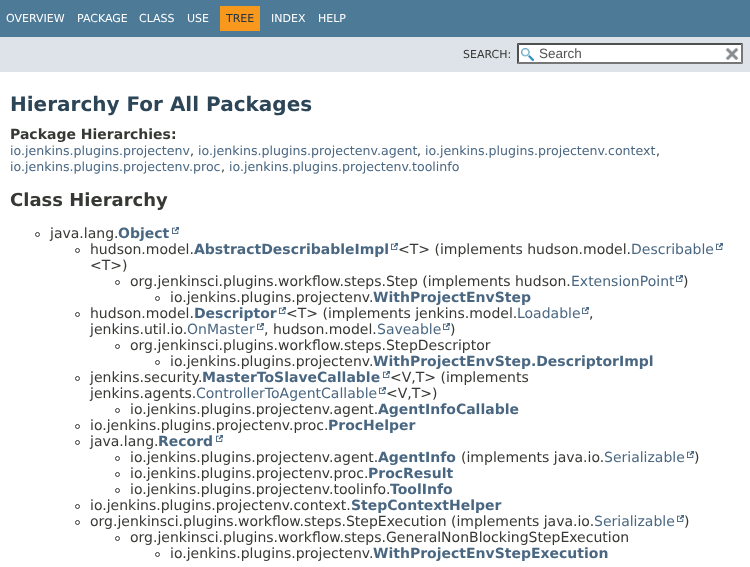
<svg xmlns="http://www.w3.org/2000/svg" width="750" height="567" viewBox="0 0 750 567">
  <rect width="100%" height="100%" fill="rgb(255,255,255)"/>
  <rect x="0" y="0" width="750" height="37" fill="rgb(77,122,151)"/>
  <g font-family="DejaVu Sans" font-size="11" fill="rgb(255,255,255)">
    <text x="6" y="22">OVERVIEW</text>
    <text x="77" y="22">PACKAGE</text>
    <text x="139" y="22">CLASS</text>
    <text x="187" y="22">USE</text>
  </g>
  <rect x="220" y="6" width="40" height="25" fill="rgb(248,152,29)"/>
  <text x="226" y="22" font-family="DejaVu Sans" font-size="11" fill="rgb(37,52,65)">TREE</text>
  <g font-family="DejaVu Sans" font-size="11" fill="rgb(255,255,255)">
    <text x="271" y="22">INDEX</text>
    <text x="318" y="22">HELP</text>
  </g>
  <rect x="0" y="37" width="750" height="35" fill="rgb(222,227,233)"/>
  <text x="463" y="58" font-family="DejaVu Sans" font-size="11" fill="rgb(53,56,51)">SEARCH:</text>
  <rect x="517" y="43" width="226" height="21" fill="rgb(255,255,255)"/>
  <image x="521" y="48" width="13" height="13" href="pic1.png"/>
  <path d="M517 43H743L741 45H519Z" fill="rgb(79,79,79)"/>
  <path d="M743 43V64L741 62V45Z" fill="rgb(118,118,118)"/>
  <path d="M743 64H517L519 62H741Z" fill="rgb(118,118,118)"/>
  <path d="M517 64V43L519 45V62Z" fill="rgb(79,79,79)"/>
  <text x="539" y="58" font-family="Liberation Sans" font-size="13.5" fill="rgb(84,84,84)">Search</text>
  <image x="725" y="48" width="14" height="12" href="pic2.png"/>
  <text x="10" y="111" font-family="DejaVu Sans" font-size="20" font-weight="bold" fill="rgb(44,69,87)">Hierarchy For All Packages</text>
  <text x="10" y="139" font-family="DejaVu Sans" font-size="14" font-weight="bold" fill="rgb(53,56,51)">Package Hierarchies:</text>
  <text x="10" y="155" font-family="DejaVu Sans" font-size="12.6" fill="rgb(74,103,130)">io.jenkins.plugins.projectenv</text>
  <text x="190" y="155" font-family="DejaVu Sans" font-size="12.6" fill="rgb(53,56,51)">,</text>
  <text x="198" y="155" font-family="DejaVu Sans" font-size="12.6" fill="rgb(74,103,130)">io.jenkins.plugins.projectenv.agent</text>
  <text x="417" y="155" font-family="DejaVu Sans" font-size="12.6" fill="rgb(53,56,51)">,</text>
  <text x="425" y="155" font-family="DejaVu Sans" font-size="12.6" fill="rgb(74,103,130)">io.jenkins.plugins.projectenv.context</text>
  <text x="656" y="155" font-family="DejaVu Sans" font-size="12.6" fill="rgb(53,56,51)">,</text>
  <text x="10" y="171" font-family="DejaVu Sans" font-size="12.6" fill="rgb(74,103,130)">io.jenkins.plugins.projectenv.proc</text>
  <text x="221" y="171" font-family="DejaVu Sans" font-size="12.6" fill="rgb(53,56,51)">,</text>
  <text x="229" y="171" font-family="DejaVu Sans" font-size="12.6" fill="rgb(74,103,130)">io.jenkins.plugins.projectenv.toolinfo</text>
  <text x="10" y="206" font-family="DejaVu Sans" font-size="18" font-weight="bold" fill="rgb(53,56,51)">Class Hierarchy</text>
  <circle cx="37.5" cy="234.5" r="2" fill="none" stroke="rgb(53,56,51)"/>
  <text x="50" y="238" font-family="DejaVu Sans" font-size="14" fill="rgb(53,56,51)">java.lang.</text>
  <text x="118" y="238" font-family="DejaVu Sans" font-size="14" font-weight="bold" fill="rgb(74,103,130)">Object</text>
  <image x="172" y="227" width="7" height="7" href="pic3.png"/>
  <circle cx="77.5" cy="250.5" r="2" fill="none" stroke="rgb(53,56,51)"/>
  <text x="90" y="254" font-family="DejaVu Sans" font-size="14" fill="rgb(53,56,51)">hudson.model.</text>
  <text x="194" y="254" font-family="DejaVu Sans" font-size="14" font-weight="bold" fill="rgb(74,103,130)">AbstractDescribableImpl</text>
  <image x="391" y="243" width="7" height="7" href="pic3.png"/>
  <text x="398" y="254" font-family="DejaVu Sans" font-size="14" fill="rgb(53,56,51)">&lt;T&gt; (implements hudson.model.</text>
  <text x="631" y="254" font-family="DejaVu Sans" font-size="14" fill="rgb(74,103,130)">Describable</text>
  <image x="716" y="243" width="7" height="7" href="pic3.png"/>
  <text x="90" y="270" font-family="DejaVu Sans" font-size="14" fill="rgb(53,56,51)">&lt;T&gt;)</text>
  <circle cx="117.5" cy="282.5" r="2" fill="none" stroke="rgb(53,56,51)"/>
  <text x="130" y="286" font-family="DejaVu Sans" font-size="14" fill="rgb(53,56,51)">org.jenkinsci.plugins.workflow.steps.Step (implements hudson.</text>
  <text x="571" y="286" font-family="DejaVu Sans" font-size="14" fill="rgb(74,103,130)">ExtensionPoint</text>
  <image x="676" y="275" width="7" height="7" href="pic3.png"/>
  <text x="683" y="286" font-family="DejaVu Sans" font-size="14" fill="rgb(53,56,51)">)</text>
  <circle cx="157.5" cy="298.5" r="2" fill="none" stroke="rgb(53,56,51)"/>
  <text x="170" y="302" font-family="DejaVu Sans" font-size="14" fill="rgb(53,56,51)">io.jenkins.plugins.projectenv.</text>
  <text x="373" y="302" font-family="DejaVu Sans" font-size="14" font-weight="bold" fill="rgb(74,103,130)">WithProjectEnvStep</text>
  <circle cx="77.5" cy="314.5" r="2" fill="none" stroke="rgb(53,56,51)"/>
  <text x="90" y="318" font-family="DejaVu Sans" font-size="14" fill="rgb(53,56,51)">hudson.model.</text>
  <text x="194" y="318" font-family="DejaVu Sans" font-size="14" font-weight="bold" fill="rgb(74,103,130)">Descriptor</text>
  <image x="279" y="307" width="7" height="7" href="pic3.png"/>
  <text x="286" y="318" font-family="DejaVu Sans" font-size="14" fill="rgb(53,56,51)">&lt;T&gt; (implements jenkins.model.</text>
  <text x="517" y="318" font-family="DejaVu Sans" font-size="14" fill="rgb(74,103,130)">Loadable</text>
  <image x="582" y="307" width="7" height="7" href="pic3.png"/>
  <g font-family="DejaVu Sans" font-size="14" fill="rgb(53,56,51)">
    <text x="589" y="318">,</text>
    <text x="90" y="334">jenkins.util.io.</text>
  </g>
  <text x="187" y="334" font-family="DejaVu Sans" font-size="14" fill="rgb(74,103,130)">OnMaster</text>
  <image x="257" y="323" width="7" height="7" href="pic3.png"/>
  <text x="264" y="334" font-family="DejaVu Sans" font-size="14" fill="rgb(53,56,51)">, hudson.model.</text>
  <text x="377" y="334" font-family="DejaVu Sans" font-size="14" fill="rgb(74,103,130)">Saveable</text>
  <image x="443" y="323" width="7" height="7" href="pic3.png"/>
  <text x="450" y="334" font-family="DejaVu Sans" font-size="14" fill="rgb(53,56,51)">)</text>
  <circle cx="117.5" cy="346.5" r="2" fill="none" stroke="rgb(53,56,51)"/>
  <text x="130" y="350" font-family="DejaVu Sans" font-size="14" fill="rgb(53,56,51)">org.jenkinsci.plugins.workflow.steps.StepDescriptor</text>
  <circle cx="157.5" cy="362.5" r="2" fill="none" stroke="rgb(53,56,51)"/>
  <text x="170" y="366" font-family="DejaVu Sans" font-size="14" fill="rgb(53,56,51)">io.jenkins.plugins.projectenv.</text>
  <text x="373" y="366" font-family="DejaVu Sans" font-size="14" font-weight="bold" fill="rgb(74,103,130)">WithProjectEnvStep.DescriptorImpl</text>
  <circle cx="77.5" cy="378.5" r="2" fill="none" stroke="rgb(53,56,51)"/>
  <text x="90" y="382" font-family="DejaVu Sans" font-size="14" fill="rgb(53,56,51)">jenkins.security.</text>
  <text x="202" y="382" font-family="DejaVu Sans" font-size="14" font-weight="bold" fill="rgb(74,103,130)">MasterToSlaveCallable</text>
  <image x="383" y="371" width="7" height="7" href="pic3.png"/>
  <g font-family="DejaVu Sans" font-size="14" fill="rgb(53,56,51)">
    <text x="390" y="382">&lt;V,T&gt; (implements</text>
    <text x="90" y="398">jenkins.agents.</text>
  </g>
  <text x="196" y="398" font-family="DejaVu Sans" font-size="14" fill="rgb(74,103,130)">ControllerToAgentCallable</text>
  <image x="379" y="387" width="7" height="7" href="pic3.png"/>
  <text x="386" y="398" font-family="DejaVu Sans" font-size="14" fill="rgb(53,56,51)">&lt;V,T&gt;)</text>
  <circle cx="117.5" cy="410.5" r="2" fill="none" stroke="rgb(53,56,51)"/>
  <text x="130" y="414" font-family="DejaVu Sans" font-size="14" fill="rgb(53,56,51)">io.jenkins.plugins.projectenv.agent.</text>
  <text x="378" y="414" font-family="DejaVu Sans" font-size="14" font-weight="bold" fill="rgb(74,103,130)">AgentInfoCallable</text>
  <circle cx="77.5" cy="426.5" r="2" fill="none" stroke="rgb(53,56,51)"/>
  <text x="90" y="430" font-family="DejaVu Sans" font-size="14" fill="rgb(53,56,51)">io.jenkins.plugins.projectenv.proc.</text>
  <text x="328" y="430" font-family="DejaVu Sans" font-size="14" font-weight="bold" fill="rgb(74,103,130)">ProcHelper</text>
  <circle cx="77.5" cy="442.5" r="2" fill="none" stroke="rgb(53,56,51)"/>
  <text x="90" y="446" font-family="DejaVu Sans" font-size="14" fill="rgb(53,56,51)">java.lang.</text>
  <text x="158" y="446" font-family="DejaVu Sans" font-size="14" font-weight="bold" fill="rgb(74,103,130)">Record</text>
  <image x="216" y="435" width="7" height="7" href="pic3.png"/>
  <circle cx="117.5" cy="458.5" r="2" fill="none" stroke="rgb(53,56,51)"/>
  <text x="130" y="462" font-family="DejaVu Sans" font-size="14" fill="rgb(53,56,51)">io.jenkins.plugins.projectenv.agent.</text>
  <text x="378" y="462" font-family="DejaVu Sans" font-size="14" font-weight="bold" fill="rgb(74,103,130)">AgentInfo</text>
  <text x="461" y="462" font-family="DejaVu Sans" font-size="14" fill="rgb(53,56,51)">(implements java.io.</text>
  <text x="604" y="462" font-family="DejaVu Sans" font-size="14" fill="rgb(74,103,130)">Serializable</text>
  <image x="687" y="451" width="7" height="7" href="pic3.png"/>
  <text x="694" y="462" font-family="DejaVu Sans" font-size="14" fill="rgb(53,56,51)">)</text>
  <circle cx="117.5" cy="474.5" r="2" fill="none" stroke="rgb(53,56,51)"/>
  <text x="130" y="478" font-family="DejaVu Sans" font-size="14" fill="rgb(53,56,51)">io.jenkins.plugins.projectenv.proc.</text>
  <text x="368" y="478" font-family="DejaVu Sans" font-size="14" font-weight="bold" fill="rgb(74,103,130)">ProcResult</text>
  <circle cx="117.5" cy="490.5" r="2" fill="none" stroke="rgb(53,56,51)"/>
  <text x="130" y="494" font-family="DejaVu Sans" font-size="14" fill="rgb(53,56,51)">io.jenkins.plugins.projectenv.toolinfo.</text>
  <text x="390" y="494" font-family="DejaVu Sans" font-size="14" font-weight="bold" fill="rgb(74,103,130)">ToolInfo</text>
  <circle cx="77.5" cy="506.5" r="2" fill="none" stroke="rgb(53,56,51)"/>
  <text x="90" y="510" font-family="DejaVu Sans" font-size="14" fill="rgb(53,56,51)">io.jenkins.plugins.projectenv.context.</text>
  <text x="351" y="510" font-family="DejaVu Sans" font-size="14" font-weight="bold" fill="rgb(74,103,130)">StepContextHelper</text>
  <circle cx="77.5" cy="522.5" r="2" fill="none" stroke="rgb(53,56,51)"/>
  <text x="90" y="526" font-family="DejaVu Sans" font-size="14" fill="rgb(53,56,51)">org.jenkinsci.plugins.workflow.steps.StepExecution (implements java.io.</text>
  <text x="594" y="526" font-family="DejaVu Sans" font-size="14" fill="rgb(74,103,130)">Serializable</text>
  <image x="677" y="515" width="7" height="7" href="pic3.png"/>
  <text x="684" y="526" font-family="DejaVu Sans" font-size="14" fill="rgb(53,56,51)">)</text>
  <circle cx="117.5" cy="538.5" r="2" fill="none" stroke="rgb(53,56,51)"/>
  <text x="130" y="542" font-family="DejaVu Sans" font-size="14" fill="rgb(53,56,51)">org.jenkinsci.plugins.workflow.steps.GeneralNonBlockingStepExecution</text>
  <circle cx="157.5" cy="554.5" r="2" fill="none" stroke="rgb(53,56,51)"/>
  <text x="170" y="558" font-family="DejaVu Sans" font-size="14" fill="rgb(53,56,51)">io.jenkins.plugins.projectenv.</text>
  <text x="373" y="558" font-family="DejaVu Sans" font-size="14" font-weight="bold" fill="rgb(74,103,130)">WithProjectEnvStepExecution</text>
</svg>
